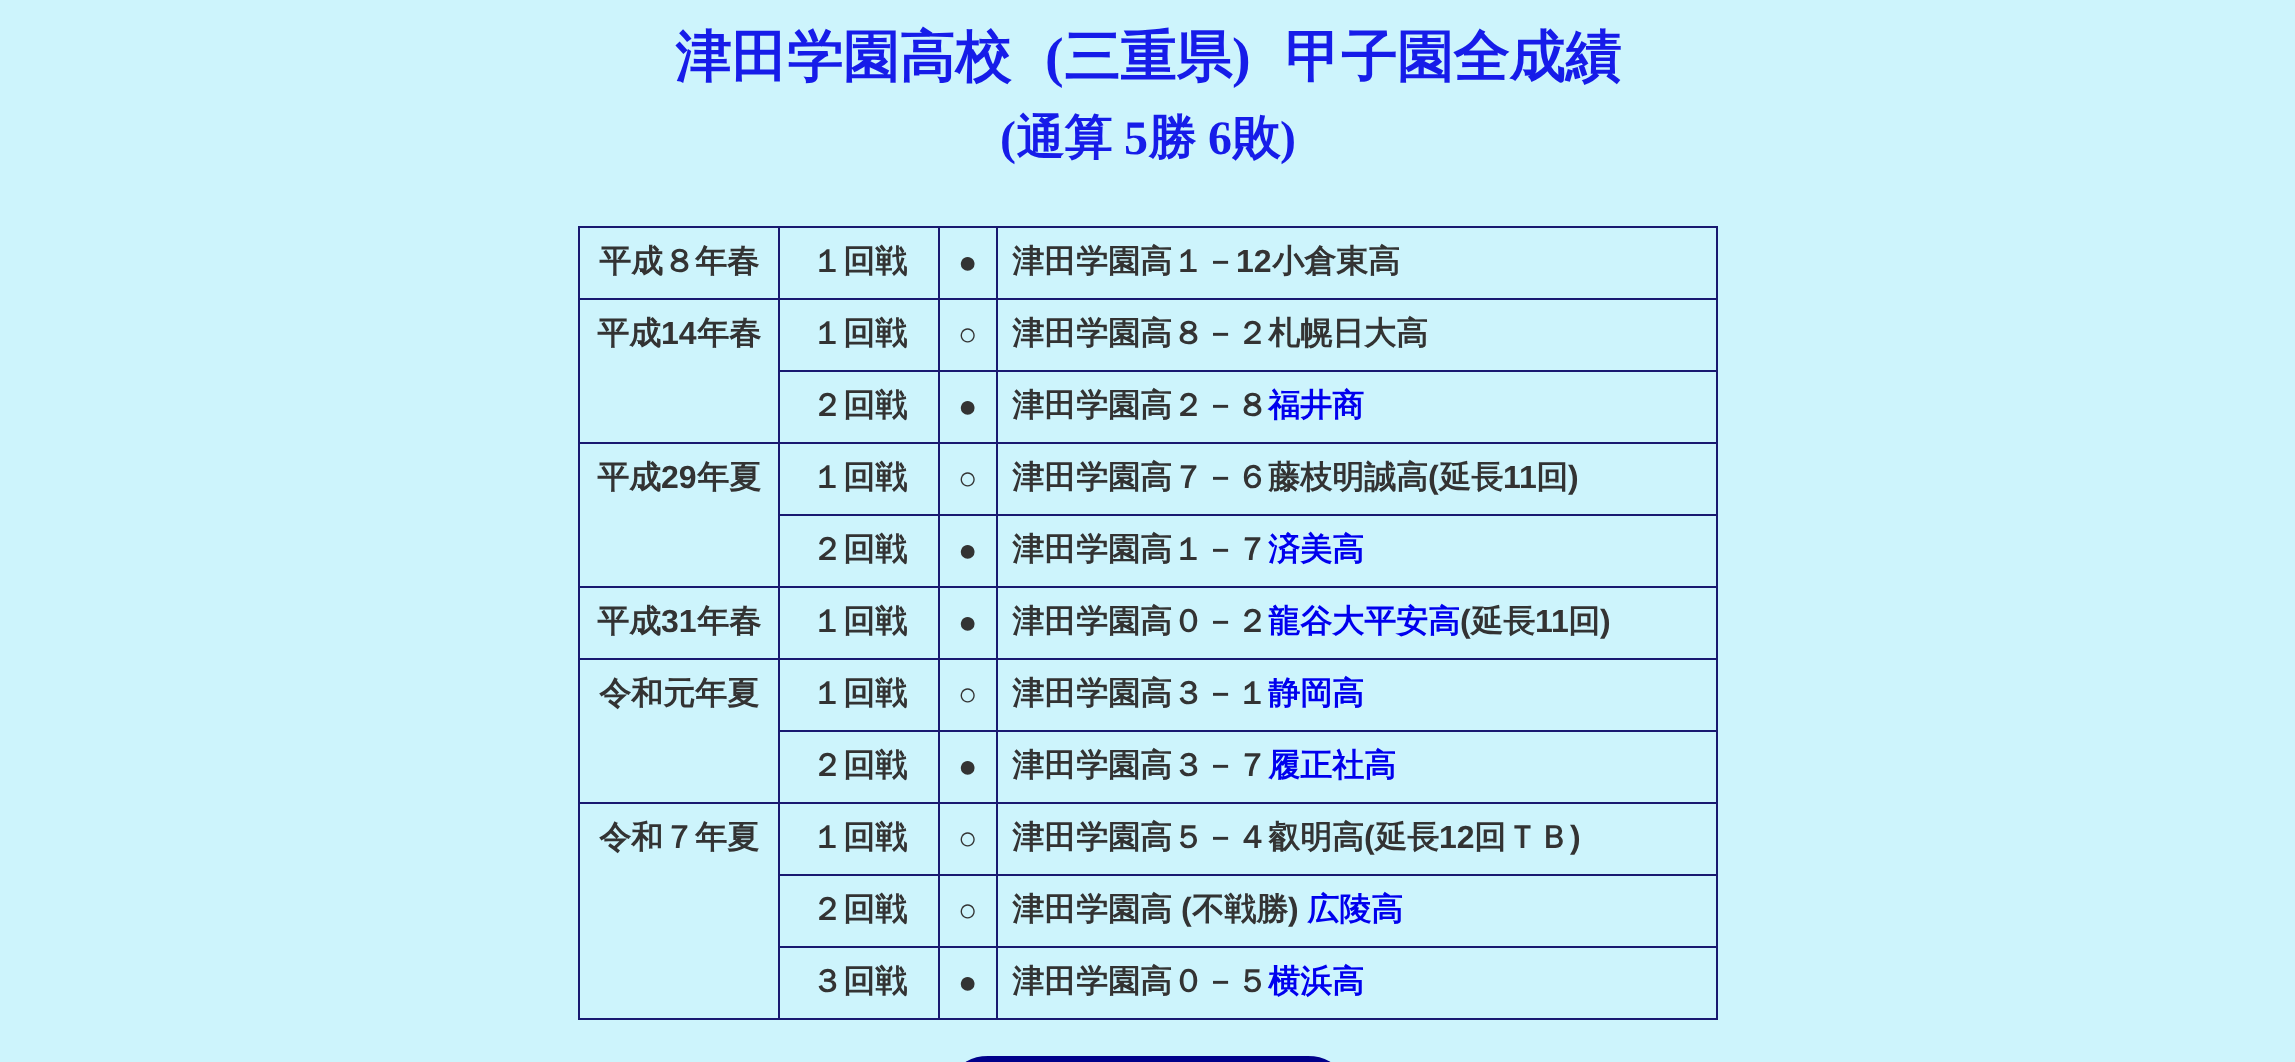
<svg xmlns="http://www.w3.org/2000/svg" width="2295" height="1062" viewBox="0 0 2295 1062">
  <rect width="100%" height="100%" fill="rgb(205,244,252)"/>
  <text x="675" y="76" font-family="WenQuanYi Zen Hei" font-size="56" font-weight="bold" fill="rgb(22,28,233)">津田学園高校</text>
  <text x="1045" y="76" font-family="Liberation Serif" font-size="56" font-weight="bold" fill="rgb(22,28,233)">(</text>
  <text x="1064" y="76" font-family="WenQuanYi Zen Hei" font-size="56" font-weight="bold" fill="rgb(22,28,233)">三重県</text>
  <text x="1232" y="76" font-family="Liberation Serif" font-size="56" font-weight="bold" fill="rgb(22,28,233)">)</text>
  <text x="1285" y="76" font-family="WenQuanYi Zen Hei" font-size="56" font-weight="bold" fill="rgb(22,28,233)">甲子園全成績</text>
  <text x="1000" y="154" font-family="Liberation Serif" font-size="48" font-weight="bold" fill="rgb(22,28,233)">(</text>
  <text x="1016" y="154" font-family="WenQuanYi Zen Hei" font-size="48" font-weight="bold" fill="rgb(22,28,233)">通算</text>
  <text x="1124" y="154" font-family="Liberation Serif" font-size="48" font-weight="bold" fill="rgb(22,28,233)">5</text>
  <text x="1148" y="154" font-family="WenQuanYi Zen Hei" font-size="48" font-weight="bold" fill="rgb(22,28,233)">勝</text>
  <text x="1208" y="154" font-family="Liberation Serif" font-size="48" font-weight="bold" fill="rgb(22,28,233)">6</text>
  <text x="1232" y="154" font-family="WenQuanYi Zen Hei" font-size="48" font-weight="bold" fill="rgb(22,28,233)">敗</text>
  <text x="1280" y="154" font-family="Liberation Serif" font-size="48" font-weight="bold" fill="rgb(22,28,233)">)</text>
  <rect x="996" y="226" width="722" height="2" fill="rgb(25,25,112)"/>
  <rect x="996" y="298" width="722" height="2" fill="rgb(25,25,112)"/>
  <rect x="996" y="370" width="722" height="2" fill="rgb(25,25,112)"/>
  <rect x="996" y="442" width="722" height="2" fill="rgb(25,25,112)"/>
  <rect x="996" y="514" width="722" height="2" fill="rgb(25,25,112)"/>
  <rect x="996" y="586" width="722" height="2" fill="rgb(25,25,112)"/>
  <rect x="996" y="658" width="722" height="2" fill="rgb(25,25,112)"/>
  <rect x="996" y="730" width="722" height="2" fill="rgb(25,25,112)"/>
  <rect x="996" y="802" width="722" height="2" fill="rgb(25,25,112)"/>
  <rect x="996" y="874" width="722" height="2" fill="rgb(25,25,112)"/>
  <rect x="996" y="946" width="722" height="2" fill="rgb(25,25,112)"/>
  <rect x="1716" y="946" width="2" height="74" fill="rgb(25,25,112)"/>
  <rect x="996" y="1018" width="722" height="2" fill="rgb(25,25,112)"/>
  <rect x="996" y="946" width="2" height="74" fill="rgb(25,25,112)"/>
  <rect x="938" y="946" width="60" height="2" fill="rgb(25,25,112)"/>
  <rect x="996" y="874" width="2" height="74" fill="rgb(25,25,112)"/>
  <rect x="938" y="874" width="60" height="2" fill="rgb(25,25,112)"/>
  <rect x="996" y="802" width="2" height="74" fill="rgb(25,25,112)"/>
  <rect x="938" y="802" width="60" height="2" fill="rgb(25,25,112)"/>
  <rect x="996" y="730" width="2" height="74" fill="rgb(25,25,112)"/>
  <rect x="938" y="730" width="60" height="2" fill="rgb(25,25,112)"/>
  <rect x="996" y="658" width="2" height="74" fill="rgb(25,25,112)"/>
  <rect x="938" y="658" width="60" height="2" fill="rgb(25,25,112)"/>
  <rect x="996" y="586" width="2" height="74" fill="rgb(25,25,112)"/>
  <rect x="938" y="586" width="60" height="2" fill="rgb(25,25,112)"/>
  <rect x="996" y="514" width="2" height="74" fill="rgb(25,25,112)"/>
  <rect x="938" y="514" width="60" height="2" fill="rgb(25,25,112)"/>
  <rect x="996" y="442" width="2" height="74" fill="rgb(25,25,112)"/>
  <rect x="938" y="442" width="60" height="2" fill="rgb(25,25,112)"/>
  <rect x="996" y="370" width="2" height="74" fill="rgb(25,25,112)"/>
  <rect x="938" y="370" width="60" height="2" fill="rgb(25,25,112)"/>
  <rect x="996" y="298" width="2" height="74" fill="rgb(25,25,112)"/>
  <rect x="938" y="298" width="60" height="2" fill="rgb(25,25,112)"/>
  <rect x="996" y="226" width="2" height="74" fill="rgb(25,25,112)"/>
  <rect x="938" y="226" width="60" height="2" fill="rgb(25,25,112)"/>
  <rect x="938" y="1018" width="60" height="2" fill="rgb(25,25,112)"/>
  <rect x="938" y="946" width="2" height="74" fill="rgb(25,25,112)"/>
  <rect x="778" y="946" width="162" height="2" fill="rgb(25,25,112)"/>
  <rect x="938" y="874" width="2" height="74" fill="rgb(25,25,112)"/>
  <rect x="778" y="874" width="162" height="2" fill="rgb(25,25,112)"/>
  <rect x="938" y="802" width="2" height="74" fill="rgb(25,25,112)"/>
  <rect x="778" y="802" width="162" height="2" fill="rgb(25,25,112)"/>
  <rect x="938" y="730" width="2" height="74" fill="rgb(25,25,112)"/>
  <rect x="778" y="730" width="162" height="2" fill="rgb(25,25,112)"/>
  <rect x="938" y="658" width="2" height="74" fill="rgb(25,25,112)"/>
  <rect x="778" y="658" width="162" height="2" fill="rgb(25,25,112)"/>
  <rect x="938" y="586" width="2" height="74" fill="rgb(25,25,112)"/>
  <rect x="778" y="586" width="162" height="2" fill="rgb(25,25,112)"/>
  <rect x="938" y="514" width="2" height="74" fill="rgb(25,25,112)"/>
  <rect x="778" y="514" width="162" height="2" fill="rgb(25,25,112)"/>
  <rect x="938" y="442" width="2" height="74" fill="rgb(25,25,112)"/>
  <rect x="778" y="442" width="162" height="2" fill="rgb(25,25,112)"/>
  <rect x="938" y="370" width="2" height="74" fill="rgb(25,25,112)"/>
  <rect x="778" y="370" width="162" height="2" fill="rgb(25,25,112)"/>
  <rect x="938" y="298" width="2" height="74" fill="rgb(25,25,112)"/>
  <rect x="778" y="298" width="162" height="2" fill="rgb(25,25,112)"/>
  <rect x="938" y="226" width="2" height="74" fill="rgb(25,25,112)"/>
  <rect x="778" y="226" width="162" height="2" fill="rgb(25,25,112)"/>
  <rect x="778" y="1018" width="162" height="2" fill="rgb(25,25,112)"/>
  <rect x="778" y="946" width="2" height="74" fill="rgb(25,25,112)"/>
  <rect x="778" y="874" width="2" height="74" fill="rgb(25,25,112)"/>
  <rect x="778" y="802" width="2" height="74" fill="rgb(25,25,112)"/>
  <rect x="578" y="802" width="202" height="2" fill="rgb(25,25,112)"/>
  <rect x="778" y="730" width="2" height="74" fill="rgb(25,25,112)"/>
  <rect x="778" y="658" width="2" height="74" fill="rgb(25,25,112)"/>
  <rect x="578" y="658" width="202" height="2" fill="rgb(25,25,112)"/>
  <rect x="778" y="586" width="2" height="74" fill="rgb(25,25,112)"/>
  <rect x="578" y="586" width="202" height="2" fill="rgb(25,25,112)"/>
  <rect x="778" y="514" width="2" height="74" fill="rgb(25,25,112)"/>
  <rect x="778" y="442" width="2" height="74" fill="rgb(25,25,112)"/>
  <rect x="578" y="442" width="202" height="2" fill="rgb(25,25,112)"/>
  <rect x="778" y="370" width="2" height="74" fill="rgb(25,25,112)"/>
  <rect x="778" y="298" width="2" height="74" fill="rgb(25,25,112)"/>
  <rect x="578" y="298" width="202" height="2" fill="rgb(25,25,112)"/>
  <rect x="778" y="226" width="2" height="74" fill="rgb(25,25,112)"/>
  <rect x="578" y="226" width="202" height="2" fill="rgb(25,25,112)"/>
  <rect x="578" y="1018" width="202" height="2" fill="rgb(25,25,112)"/>
  <rect x="578" y="802" width="2" height="218" fill="rgb(25,25,112)"/>
  <rect x="578" y="658" width="2" height="146" fill="rgb(25,25,112)"/>
  <rect x="578" y="586" width="2" height="74" fill="rgb(25,25,112)"/>
  <rect x="578" y="442" width="2" height="146" fill="rgb(25,25,112)"/>
  <rect x="578" y="298" width="2" height="146" fill="rgb(25,25,112)"/>
  <rect x="578" y="226" width="2" height="74" fill="rgb(25,25,112)"/>
  <g font-family="WenQuanYi Zen Hei" font-size="32" font-weight="bold" fill="rgb(51,51,51)">
    <text x="599" y="272">平成８年春</text>
    <text x="811" y="272">１回戦</text>
  </g>
  <text x="958" y="273" font-family="Liberation Serif" font-size="32" font-weight="bold" fill="rgb(51,51,51)">●</text>
  <rect x="1716" y="874" width="2" height="74" fill="rgb(25,25,112)"/>
  <rect x="1716" y="802" width="2" height="74" fill="rgb(25,25,112)"/>
  <rect x="1716" y="730" width="2" height="74" fill="rgb(25,25,112)"/>
  <rect x="1716" y="658" width="2" height="74" fill="rgb(25,25,112)"/>
  <rect x="1716" y="586" width="2" height="74" fill="rgb(25,25,112)"/>
  <rect x="1716" y="514" width="2" height="74" fill="rgb(25,25,112)"/>
  <rect x="1716" y="442" width="2" height="74" fill="rgb(25,25,112)"/>
  <rect x="1716" y="370" width="2" height="74" fill="rgb(25,25,112)"/>
  <rect x="1716" y="298" width="2" height="74" fill="rgb(25,25,112)"/>
  <rect x="1716" y="226" width="2" height="74" fill="rgb(25,25,112)"/>
  <text x="1012" y="272" font-family="WenQuanYi Zen Hei" font-size="32" font-weight="bold" fill="rgb(51,51,51)">津田学園高１－</text>
  <text x="1236" y="272" font-family="Liberation Sans" font-size="32" font-weight="bold" fill="rgb(51,51,51)">12</text>
  <g font-family="WenQuanYi Zen Hei" font-size="32" font-weight="bold" fill="rgb(51,51,51)">
    <text x="1272" y="272">小倉東高</text>
    <text x="597" y="344">平成</text>
  </g>
  <text x="661" y="344" font-family="Liberation Sans" font-size="32" font-weight="bold" fill="rgb(51,51,51)">14</text>
  <g font-family="WenQuanYi Zen Hei" font-size="32" font-weight="bold" fill="rgb(51,51,51)">
    <text x="697" y="344">年春</text>
    <text x="811" y="344">１回戦</text>
  </g>
  <text x="958" y="345" font-family="Liberation Serif" font-size="32" font-weight="bold" fill="rgb(51,51,51)">○</text>
  <g font-family="WenQuanYi Zen Hei" font-size="32" font-weight="bold" fill="rgb(51,51,51)">
    <text x="1012" y="344">津田学園高８－２札幌日大高</text>
    <text x="811" y="416">２回戦</text>
  </g>
  <text x="958" y="417" font-family="Liberation Serif" font-size="32" font-weight="bold" fill="rgb(51,51,51)">●</text>
  <text x="1012" y="416" font-family="WenQuanYi Zen Hei" font-size="32" font-weight="bold" fill="rgb(51,51,51)">津田学園高２－８</text>
  <text x="1268" y="416" font-family="WenQuanYi Zen Hei" font-size="32" font-weight="bold" fill="rgb(0,0,238)">福井商</text>
  <text x="597" y="488" font-family="WenQuanYi Zen Hei" font-size="32" font-weight="bold" fill="rgb(51,51,51)">平成</text>
  <text x="661" y="488" font-family="Liberation Sans" font-size="32" font-weight="bold" fill="rgb(51,51,51)">29</text>
  <g font-family="WenQuanYi Zen Hei" font-size="32" font-weight="bold" fill="rgb(51,51,51)">
    <text x="697" y="488">年夏</text>
    <text x="811" y="488">１回戦</text>
  </g>
  <text x="958" y="489" font-family="Liberation Serif" font-size="32" font-weight="bold" fill="rgb(51,51,51)">○</text>
  <text x="1012" y="488" font-family="WenQuanYi Zen Hei" font-size="32" font-weight="bold" fill="rgb(51,51,51)">津田学園高７－６藤枝明誠高</text>
  <text x="1428" y="488" font-family="Liberation Sans" font-size="32" font-weight="bold" fill="rgb(51,51,51)">(</text>
  <text x="1439" y="488" font-family="WenQuanYi Zen Hei" font-size="32" font-weight="bold" fill="rgb(51,51,51)">延長</text>
  <text x="1503" y="488" font-family="Liberation Sans" font-size="32" font-weight="bold" fill="rgb(51,51,51)">11</text>
  <text x="1536" y="488" font-family="WenQuanYi Zen Hei" font-size="32" font-weight="bold" fill="rgb(51,51,51)">回</text>
  <text x="1568" y="488" font-family="Liberation Sans" font-size="32" font-weight="bold" fill="rgb(51,51,51)">)</text>
  <text x="811" y="560" font-family="WenQuanYi Zen Hei" font-size="32" font-weight="bold" fill="rgb(51,51,51)">２回戦</text>
  <text x="958" y="561" font-family="Liberation Serif" font-size="32" font-weight="bold" fill="rgb(51,51,51)">●</text>
  <text x="1012" y="560" font-family="WenQuanYi Zen Hei" font-size="32" font-weight="bold" fill="rgb(51,51,51)">津田学園高１－７</text>
  <text x="1268" y="560" font-family="WenQuanYi Zen Hei" font-size="32" font-weight="bold" fill="rgb(0,0,238)">済美高</text>
  <text x="597" y="632" font-family="WenQuanYi Zen Hei" font-size="32" font-weight="bold" fill="rgb(51,51,51)">平成</text>
  <text x="661" y="632" font-family="Liberation Sans" font-size="32" font-weight="bold" fill="rgb(51,51,51)">31</text>
  <g font-family="WenQuanYi Zen Hei" font-size="32" font-weight="bold" fill="rgb(51,51,51)">
    <text x="697" y="632">年春</text>
    <text x="811" y="632">１回戦</text>
  </g>
  <text x="958" y="633" font-family="Liberation Serif" font-size="32" font-weight="bold" fill="rgb(51,51,51)">●</text>
  <text x="1012" y="632" font-family="WenQuanYi Zen Hei" font-size="32" font-weight="bold" fill="rgb(51,51,51)">津田学園高０－２</text>
  <text x="1268" y="632" font-family="WenQuanYi Zen Hei" font-size="32" font-weight="bold" fill="rgb(0,0,238)">龍谷大平安高</text>
  <text x="1460" y="632" font-family="Liberation Sans" font-size="32" font-weight="bold" fill="rgb(51,51,51)">(</text>
  <text x="1471" y="632" font-family="WenQuanYi Zen Hei" font-size="32" font-weight="bold" fill="rgb(51,51,51)">延長</text>
  <text x="1535" y="632" font-family="Liberation Sans" font-size="32" font-weight="bold" fill="rgb(51,51,51)">11</text>
  <text x="1568" y="632" font-family="WenQuanYi Zen Hei" font-size="32" font-weight="bold" fill="rgb(51,51,51)">回</text>
  <text x="1600" y="632" font-family="Liberation Sans" font-size="32" font-weight="bold" fill="rgb(51,51,51)">)</text>
  <g font-family="WenQuanYi Zen Hei" font-size="32" font-weight="bold" fill="rgb(51,51,51)">
    <text x="599" y="704">令和元年夏</text>
    <text x="811" y="704">１回戦</text>
  </g>
  <text x="958" y="705" font-family="Liberation Serif" font-size="32" font-weight="bold" fill="rgb(51,51,51)">○</text>
  <text x="1012" y="704" font-family="WenQuanYi Zen Hei" font-size="32" font-weight="bold" fill="rgb(51,51,51)">津田学園高３－１</text>
  <text x="1268" y="704" font-family="WenQuanYi Zen Hei" font-size="32" font-weight="bold" fill="rgb(0,0,238)">静岡高</text>
  <text x="811" y="776" font-family="WenQuanYi Zen Hei" font-size="32" font-weight="bold" fill="rgb(51,51,51)">２回戦</text>
  <text x="958" y="777" font-family="Liberation Serif" font-size="32" font-weight="bold" fill="rgb(51,51,51)">●</text>
  <text x="1012" y="776" font-family="WenQuanYi Zen Hei" font-size="32" font-weight="bold" fill="rgb(51,51,51)">津田学園高３－７</text>
  <text x="1268" y="776" font-family="WenQuanYi Zen Hei" font-size="32" font-weight="bold" fill="rgb(0,0,238)">履正社高</text>
  <g font-family="WenQuanYi Zen Hei" font-size="32" font-weight="bold" fill="rgb(51,51,51)">
    <text x="599" y="848">令和７年夏</text>
    <text x="811" y="848">１回戦</text>
  </g>
  <text x="958" y="849" font-family="Liberation Serif" font-size="32" font-weight="bold" fill="rgb(51,51,51)">○</text>
  <text x="1012" y="848" font-family="WenQuanYi Zen Hei" font-size="32" font-weight="bold" fill="rgb(51,51,51)">津田学園高５－４叡明高</text>
  <text x="1364" y="848" font-family="Liberation Sans" font-size="32" font-weight="bold" fill="rgb(51,51,51)">(</text>
  <text x="1375" y="848" font-family="WenQuanYi Zen Hei" font-size="32" font-weight="bold" fill="rgb(51,51,51)">延長</text>
  <text x="1439" y="848" font-family="Liberation Sans" font-size="32" font-weight="bold" fill="rgb(51,51,51)">12</text>
  <text x="1474" y="848" font-family="WenQuanYi Zen Hei" font-size="32" font-weight="bold" fill="rgb(51,51,51)">回ＴＢ</text>
  <text x="1570" y="848" font-family="Liberation Sans" font-size="32" font-weight="bold" fill="rgb(51,51,51)">)</text>
  <text x="811" y="920" font-family="WenQuanYi Zen Hei" font-size="32" font-weight="bold" fill="rgb(51,51,51)">２回戦</text>
  <text x="958" y="921" font-family="Liberation Serif" font-size="32" font-weight="bold" fill="rgb(51,51,51)">○</text>
  <text x="1012" y="920" font-family="WenQuanYi Zen Hei" font-size="32" font-weight="bold" fill="rgb(51,51,51)">津田学園高</text>
  <text x="1181" y="920" font-family="Liberation Sans" font-size="32" font-weight="bold" fill="rgb(51,51,51)">(</text>
  <text x="1192" y="920" font-family="WenQuanYi Zen Hei" font-size="32" font-weight="bold" fill="rgb(51,51,51)">不戦勝</text>
  <text x="1288" y="920" font-family="Liberation Sans" font-size="32" font-weight="bold" fill="rgb(51,51,51)">)</text>
  <text x="1307" y="920" font-family="WenQuanYi Zen Hei" font-size="32" font-weight="bold" fill="rgb(0,0,238)">広陵高</text>
  <text x="811" y="992" font-family="WenQuanYi Zen Hei" font-size="32" font-weight="bold" fill="rgb(51,51,51)">３回戦</text>
  <text x="958" y="993" font-family="Liberation Serif" font-size="32" font-weight="bold" fill="rgb(51,51,51)">●</text>
  <text x="1012" y="992" font-family="WenQuanYi Zen Hei" font-size="32" font-weight="bold" fill="rgb(51,51,51)">津田学園高０－５</text>
  <text x="1268" y="992" font-family="WenQuanYi Zen Hei" font-size="32" font-weight="bold" fill="rgb(0,0,238)">横浜高</text>
  <rect x="958" y="1056" width="380" height="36" rx="30" fill="rgb(0,0,139)"/>
</svg>
